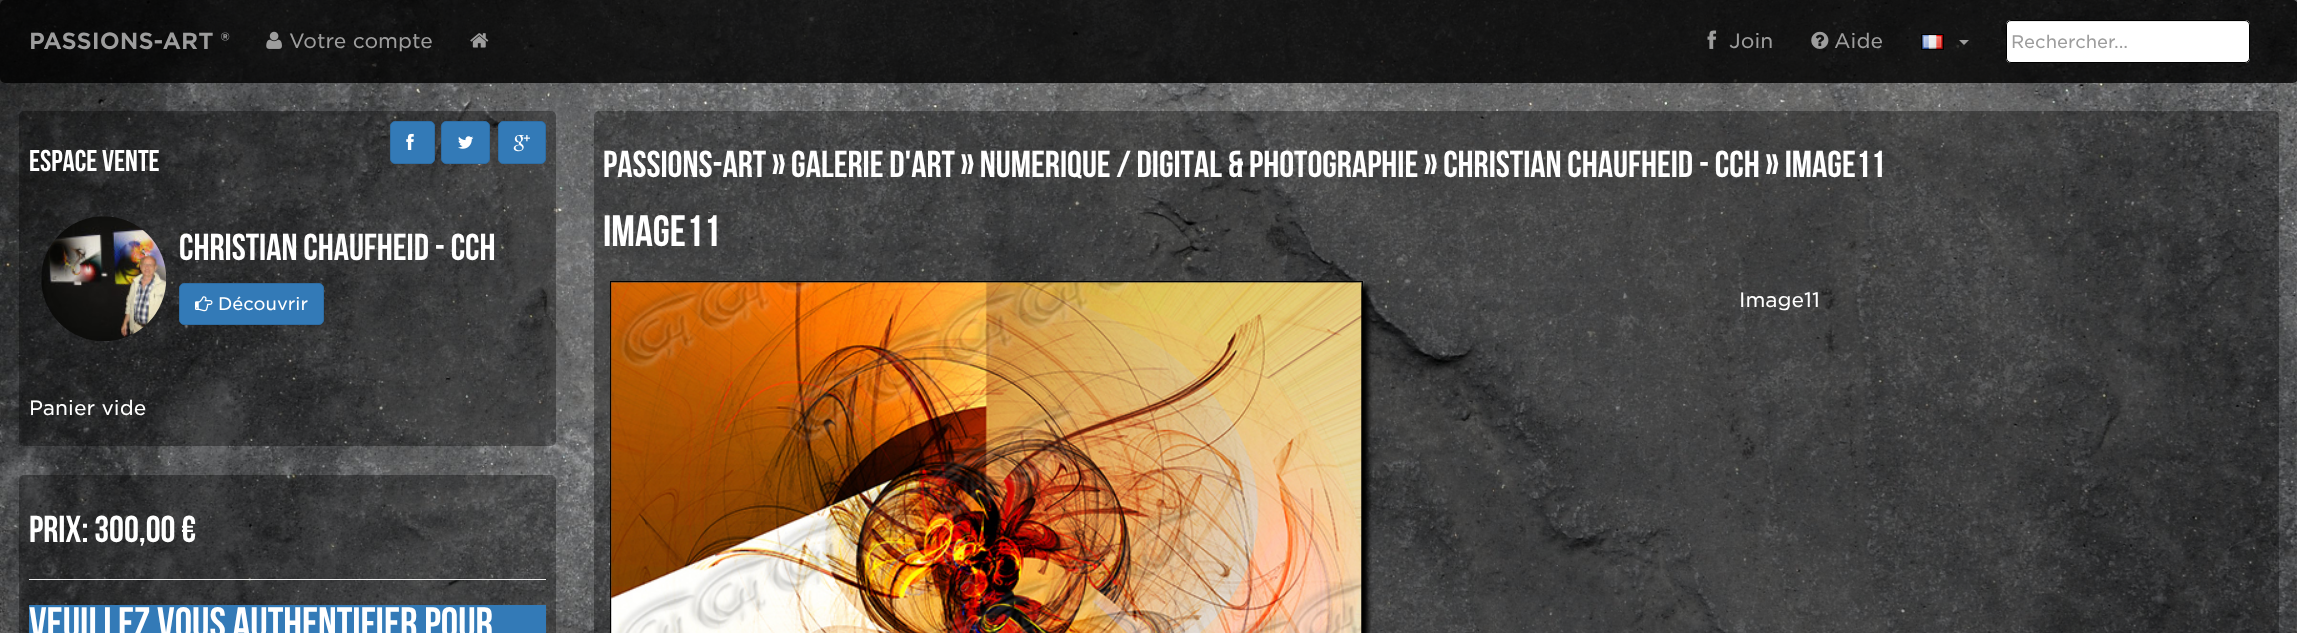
<svg xmlns="http://www.w3.org/2000/svg" width="2297" height="633" viewBox="0 0 2297 633">
  <rect width="100%" height="100%" fill="rgb(255,255,255)"/>
  <image x="0" y="0" width="2297" height="633" href="pic1.png"/>
  <rect x="0" y="0" width="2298" height="83" rx="5" fill="rgba(0,0,0,0.8)"/>
  <text x="29" y="49" font-family="'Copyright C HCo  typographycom'" font-size="22.5" fill="rgb(157,157,157)">PASSIONS-ART ®</text>
  <image x="266" y="31" width="16" height="18" href="pic2.png"/>
  <text x="289" y="48" font-family="'Copyright C HCo  typographycom'" font-size="20" font-weight="300" fill="rgb(157,157,157)">Votre compte</text>
  <image x="470" y="33" width="19" height="15" href="pic3.png"/>
  <image x="1707" y="30" width="10" height="19" href="pic4.png"/>
  <text x="1729" y="48" font-family="'Copyright C HCo  typographycom'" font-size="20" font-weight="300" fill="rgb(157,157,157)">Join</text>
  <image x="1811" y="31" width="18" height="18" href="pic5.png"/>
  <text x="1834" y="48" font-family="'Copyright C HCo  typographycom'" font-size="20" font-weight="300" fill="rgb(157,157,157)">Aide</text>
  <rect x="1921.5" y="34.5" width="22" height="15" fill="none" stroke="rgb(0,0,0)"/>
  <image x="1922" y="35" width="21" height="14" href="pic6.png"/>
  <path d="M1959 40H1969L1964 45Z" fill="rgb(157,157,157)"/>
  <rect x="2006" y="20" width="244" height="43" rx="5" fill="rgb(255,255,255)"/>
  <path d="M2011 22H2245C2247 22 2249 24 2249 26C2249 23 2248 21 2245 21H2012C2009 21 2008 23 2008 26C2008 24 2009 22 2011 22Z" fill="rgb(236,236,236)"/>
  <rect x="2006.5" y="20.5" width="243" height="42" rx="4.5" fill="none" stroke="rgb(0,0,0)"/>
  <text x="2011" y="48" font-family="'Copyright C HCo  typographycom'" font-size="17.5" font-weight="300" fill="rgb(157,157,157)">Rechercher...</text>
  <rect x="19" y="111" width="537" height="335" rx="5" fill="rgba(0,0,0,0.35)"/>
  <text x="29" y="171" font-family="Bebas Neue" font-size="30" fill="rgb(255,255,255)">ESPACE VENTE</text>
  <rect x="390.5" y="121.5" width="44" height="42" rx="4.5" fill="rgb(51,122,183)" stroke="rgb(46,109,164)"/>
  <image x="406" y="133" width="8" height="17" href="pic7.png"/>
  <rect x="441.5" y="121.5" width="48" height="42" rx="4.5" fill="rgb(51,122,183)" stroke="rgb(46,109,164)"/>
  <image x="458" y="136" width="16" height="13" href="pic8.png"/>
  <rect x="498.5" y="121.5" width="47" height="42" rx="4.5" fill="rgb(51,122,183)" stroke="rgb(46,109,164)"/>
  <image x="513" y="135" width="17" height="17" href="pic9.png"/>
  <image x="41" y="216" width="126" height="125" href="pic10.png"/>
  <text x="179" y="260" font-family="Bebas Neue" font-size="37.5" fill="rgb(255,255,255)">CHRISTIAN CHAUFHEID - CCH</text>
  <rect x="179.5" y="283.5" width="144" height="41" rx="4.5" fill="rgb(51,122,183)" stroke="rgb(46,109,164)"/>
  <image x="195" y="296" width="18" height="16" href="pic11.png"/>
  <text x="218" y="310" font-family="'Copyright C HCo  typographycom'" font-size="17.5" font-weight="300" fill="rgb(255,255,255)">Découvrir</text>
  <text x="29" y="415" font-family="'Copyright C HCo  typographycom'" font-size="20" font-weight="300" fill="rgb(255,255,255)">Panier vide</text>
  <rect x="19" y="475" width="537" height="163" rx="5" fill="rgba(0,0,0,0.35)"/>
  <text x="29" y="542" font-family="Bebas Neue" font-size="37.5" fill="rgb(255,255,255)">PRIX: 300,00 €</text>
  <rect x="29" y="579" width="517" height="1" fill="rgb(238,238,238)"/>
  <rect x="29" y="605" width="517" height="28" fill="rgb(51,122,183)"/>
  <text x="29" y="638" font-family="Bebas Neue" font-size="43.75" fill="rgb(255,255,255)">Veuillez vous authentifier pour</text>
  <rect x="594" y="111" width="1685" height="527" rx="5" fill="rgba(0,0,0,0.35)"/>
  <text x="603" y="177" font-family="Bebas Neue" font-size="37.5" fill="rgb(255,255,255)">PASSIONS-ART » GALERIE D'ART » NUMERIQUE / DIGITAL &amp; PHOTOGRAPHIE » CHRISTIAN CHAUFHEID - CCH » IMAGE11</text>
  <text x="603" y="246" font-family="Bebas Neue" font-size="43.75" fill="rgb(255,255,255)">image11</text>
  <rect x="615" y="286" width="753" height="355" fill="rgb(0,0,0)" filter="blur(2.5px)"/>
  <rect x="610.5" y="281.5" width="752" height="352" fill="none" stroke="rgb(0,0,0)"/>
  <image x="611" y="282" width="751" height="351" href="pic12.png"/>
  <text x="1739" y="307" font-family="'Copyright C HCo  typographycom'" font-size="20" font-weight="300" fill="rgb(255,255,255)">Image11</text>
</svg>
